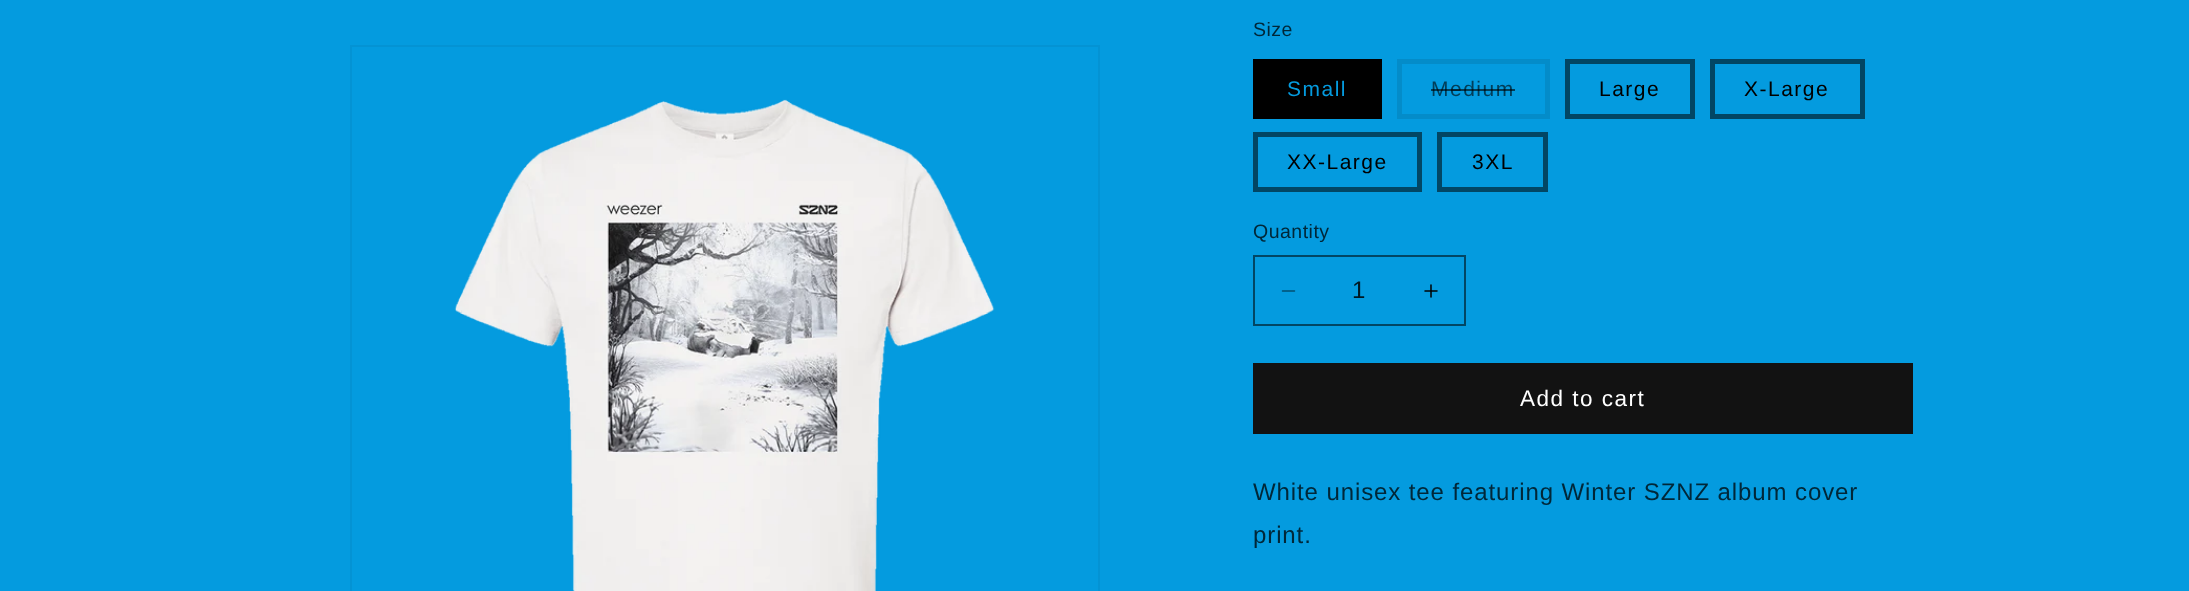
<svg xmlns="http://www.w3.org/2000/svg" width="2189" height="591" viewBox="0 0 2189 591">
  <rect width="100%" height="100%" fill="rgb(4,155,223)"/>
  <rect x="351" y="46" width="748" height="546" fill="none" stroke="rgb(4,147,212)" stroke-width="2"/>
  <image x="454" y="99" width="541" height="492" href="pic1.png"/>
  <text x="1253" y="36" font-family="Arimo" font-size="19.5" letter-spacing="0.5" fill="rgb(1,39,56)">Size</text>
  <rect x="1253" y="59" width="129" height="60" fill="rgb(0,0,0)"/>
  <text x="1287" y="96" font-family="Arimo" font-size="21" letter-spacing="1.5" fill="rgb(4,155,223)">Small</text>
  <rect x="1399.5" y="61.5" width="148" height="55" fill="none" stroke="rgb(4,140,201)" stroke-width="5"/>
  <text x="1431" y="96" font-family="Arimo" font-size="21" letter-spacing="1.5" fill="rgb(2,62,89)">Medium</text>
  <rect x="1431" y="89" width="84" height="2" fill="rgba(0,0,0,0.6)"/>
  <rect x="1567.5" y="61.5" width="125" height="55" fill="none" stroke="rgb(2,70,100)" stroke-width="5"/>
  <text x="1599" y="96" font-family="Arimo" font-size="21" letter-spacing="1.5" fill="rgb(0,0,0)">Large</text>
  <rect x="1712.5" y="61.5" width="150" height="55" fill="none" stroke="rgb(2,70,100)" stroke-width="5"/>
  <text x="1744" y="96" font-family="Arimo" font-size="21" letter-spacing="1.5" fill="rgb(0,0,0)">X-Large</text>
  <rect x="1255.5" y="134.5" width="164" height="55" fill="none" stroke="rgb(2,70,100)" stroke-width="5"/>
  <text x="1287" y="169" font-family="Arimo" font-size="21" letter-spacing="1.5" fill="rgb(0,0,0)">XX-Large</text>
  <rect x="1439.5" y="134.5" width="106" height="55" fill="none" stroke="rgb(2,70,100)" stroke-width="5"/>
  <text x="1472" y="169" font-family="Arimo" font-size="21" letter-spacing="1.5" fill="rgb(0,0,0)">3XL</text>
  <text x="1253" y="238" font-family="Arimo" font-size="19.5" letter-spacing="0.5" fill="rgb(1,39,56)">Quantity</text>
  <image x="1281" y="290" width="15" height="2" href="pic2.png"/>
  <image x="1424" y="284" width="14" height="14" href="pic3.png"/>
  <rect x="1254" y="256" width="211" height="69" fill="none" stroke="rgb(2,70,100)" stroke-width="2"/>
  <text x="1352" y="298" font-family="Arimo" font-size="24" fill="rgb(1,23,33)">1</text>
  <rect x="1253" y="363" width="660" height="71" fill="rgb(18,18,18)"/>
  <text x="1520" y="406" font-family="Arimo" font-size="22.5" letter-spacing="1.5" fill="rgb(255,255,255)">Add to cart</text>
  <g font-family="Arimo" font-size="24" letter-spacing="0.9" fill="rgb(1,39,56)">
    <text>
      <tspan x="1253" y="500">White unisex tee featuring Winter SZNZ album cover</tspan>
      <tspan x="1253" y="543">print.</tspan>
    </text>
  </g>
</svg>
